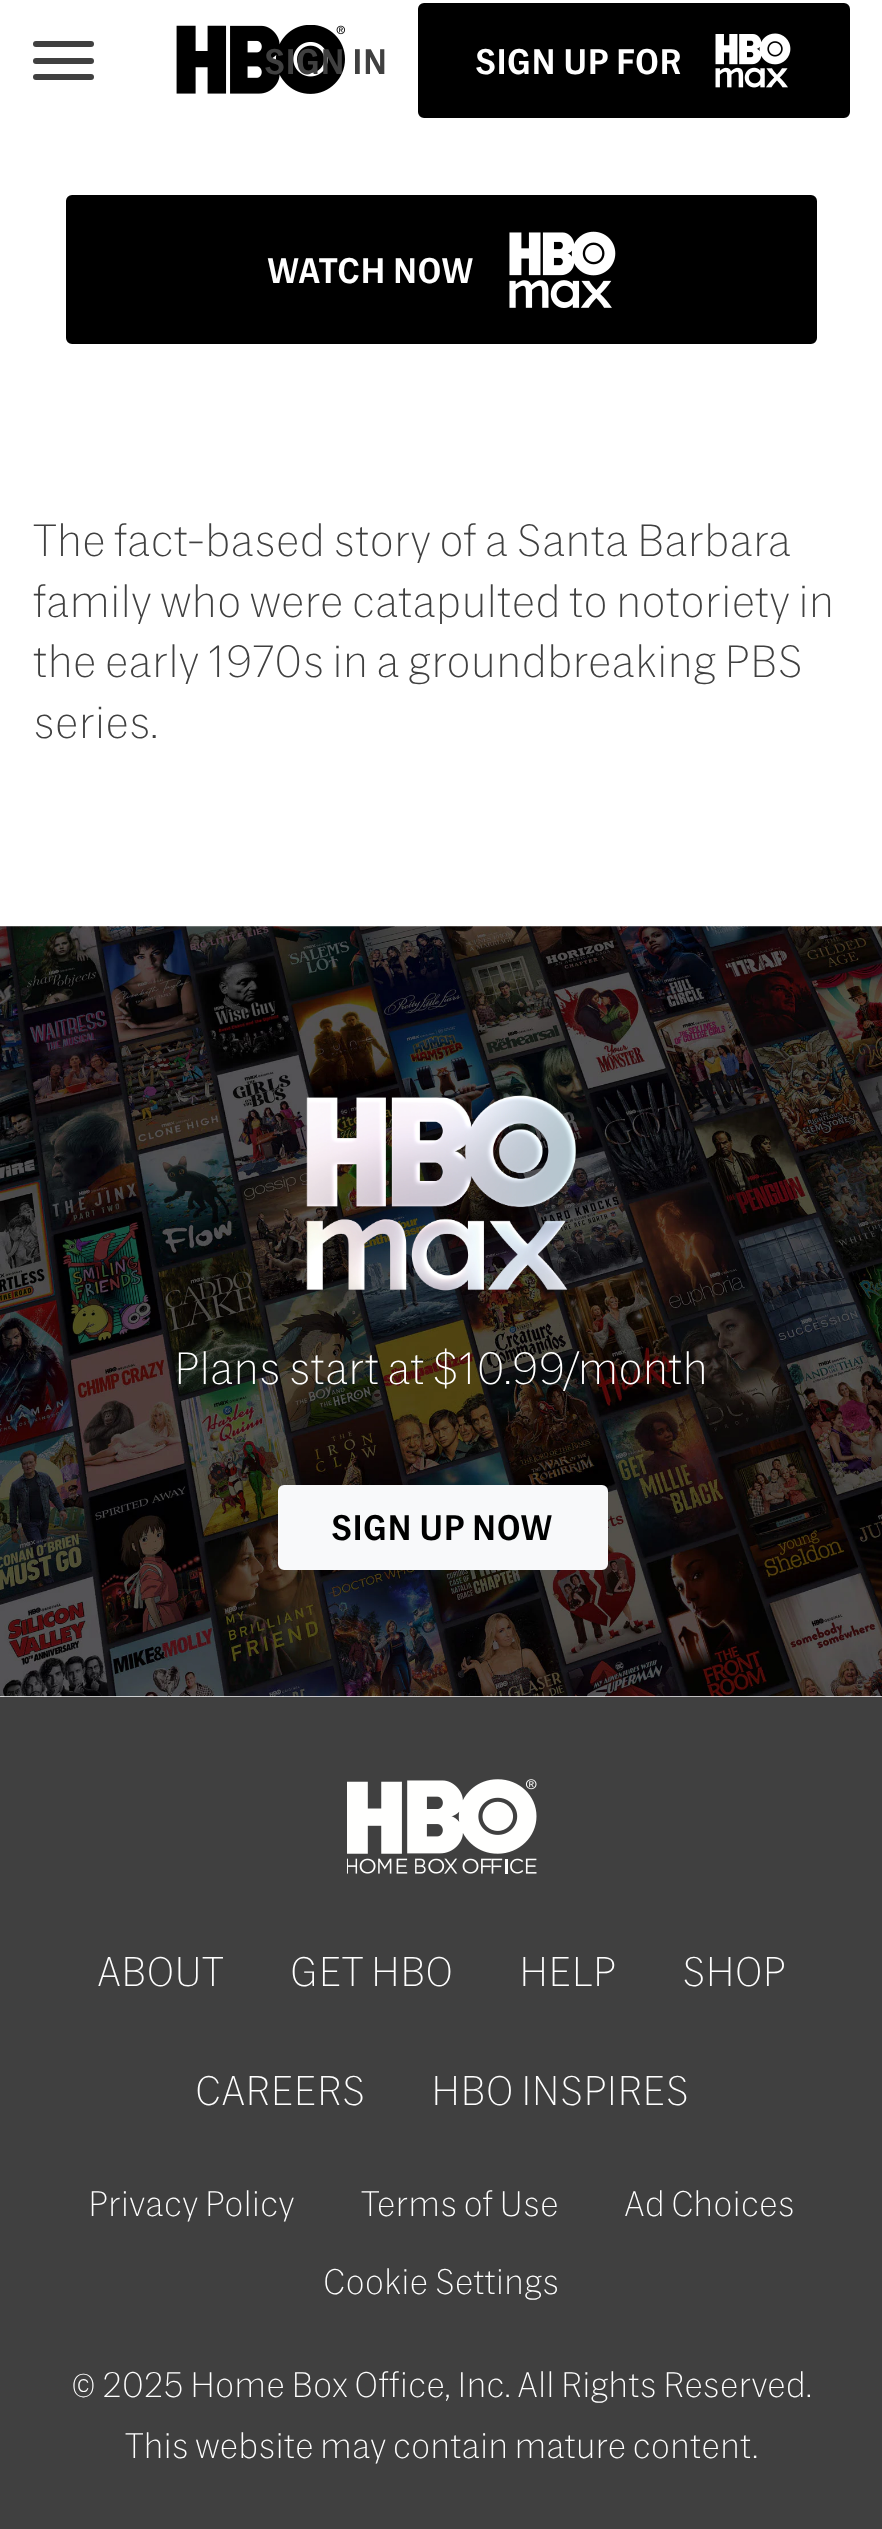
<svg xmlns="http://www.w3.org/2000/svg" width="882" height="2529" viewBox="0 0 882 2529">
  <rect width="100%" height="100%" fill="rgb(255,255,255)"/>
  <rect x="33" y="41" width="61" height="6" rx="3" fill="rgb(64,64,64)"/>
  <rect x="33" y="58" width="61" height="6" rx="3" fill="rgb(64,64,64)"/>
  <rect x="33" y="74" width="61" height="6" rx="3" fill="rgb(64,64,64)"/>
  <image x="176" y="25" width="169" height="69" href="pic1.png"/>
  <text x="264" y="74" font-family="'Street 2'" font-size="30.25" font-weight="500" fill="rgb(64,64,64)">SIGN IN</text>
  <rect x="419.5" y="4.5" width="429" height="112" rx="4.5" fill="rgb(0,0,0)" stroke="rgb(0,0,0)" stroke-width="3"/>
  <text x="475" y="74" font-family="'Street 2'" font-size="30.25" font-weight="500" fill="rgb(255,255,255)">SIGN UP FOR</text>
  <image x="715" y="33" width="76" height="55" href="pic2.png"/>
  <rect x="67.5" y="196.5" width="748" height="146" rx="4.5" fill="rgb(0,0,0)" stroke="rgb(0,0,0)" stroke-width="3"/>
  <text x="267" y="283" font-family="'Street 2'" font-size="30.25" font-weight="500" fill="rgb(255,255,255)">WATCH NOW</text>
  <image x="509" y="231" width="107" height="77" href="pic3.png"/>
  <g font-family="'Street 2'" font-size="38.5" font-weight="100" fill="rgb(64,64,64)">
    <text>
      <tspan x="33" y="556">The fact-based story of a Santa Barbara</tspan>
      <tspan x="33" y="617">family who were catapulted to notoriety in</tspan>
      <tspan x="33" y="677">the early 1970s in a groundbreaking PBS</tspan>
      <tspan x="33" y="738">series.</tspan>
    </text>
  </g>
  <image x="0" y="926" width="882" height="771" href="pic4.png"/>
  <image x="306" y="1095" width="270" height="196" href="pic5.png"/>
  <text x="174" y="1384" font-family="'Street 2'" font-size="38.5" font-weight="100" fill="rgb(255,255,255)">Plans start at $10.99/month</text>
  <rect x="279.5" y="1486.5" width="327" height="82" rx="4.5" fill="rgb(248,249,250)" stroke="rgb(248,249,250)" stroke-width="3"/>
  <text x="331" y="1540" font-family="'Street 2'" font-size="30.25" font-weight="500" fill="rgb(0,0,0)">SIGN UP NOW</text>
  <rect x="0" y="1697" width="882" height="832" fill="rgb(64,64,64)"/>
  <image x="347" y="1779" width="190" height="95" href="pic6.png"/>
  <g font-family="'Street 2'" font-size="35.25" font-weight="100" fill="rgb(255,255,255)">
    <text x="97" y="1986">ABOUT</text>
    <text x="290" y="1986">GET HBO</text>
    <text x="519" y="1986">HELP</text>
    <text x="682" y="1986">SHOP</text>
    <text x="195" y="2105">CAREERS</text>
    <text x="431" y="2105">HBO INSPIRES</text>
  </g>
  <g font-family="'Street 2'" font-size="30.25" font-weight="100" fill="rgb(255,255,255)">
    <text x="88" y="2216">Privacy Policy</text>
    <text x="361" y="2216">Terms of Use</text>
    <text x="624" y="2216">Ad Choices</text>
    <text x="323" y="2294">Cookie Settings</text>
    <text x="71" y="2397">© 2025 Home Box Office, Inc. All Rights Reserved.</text>
    <text x="125" y="2458">This website may contain mature content.</text>
  </g>
</svg>
